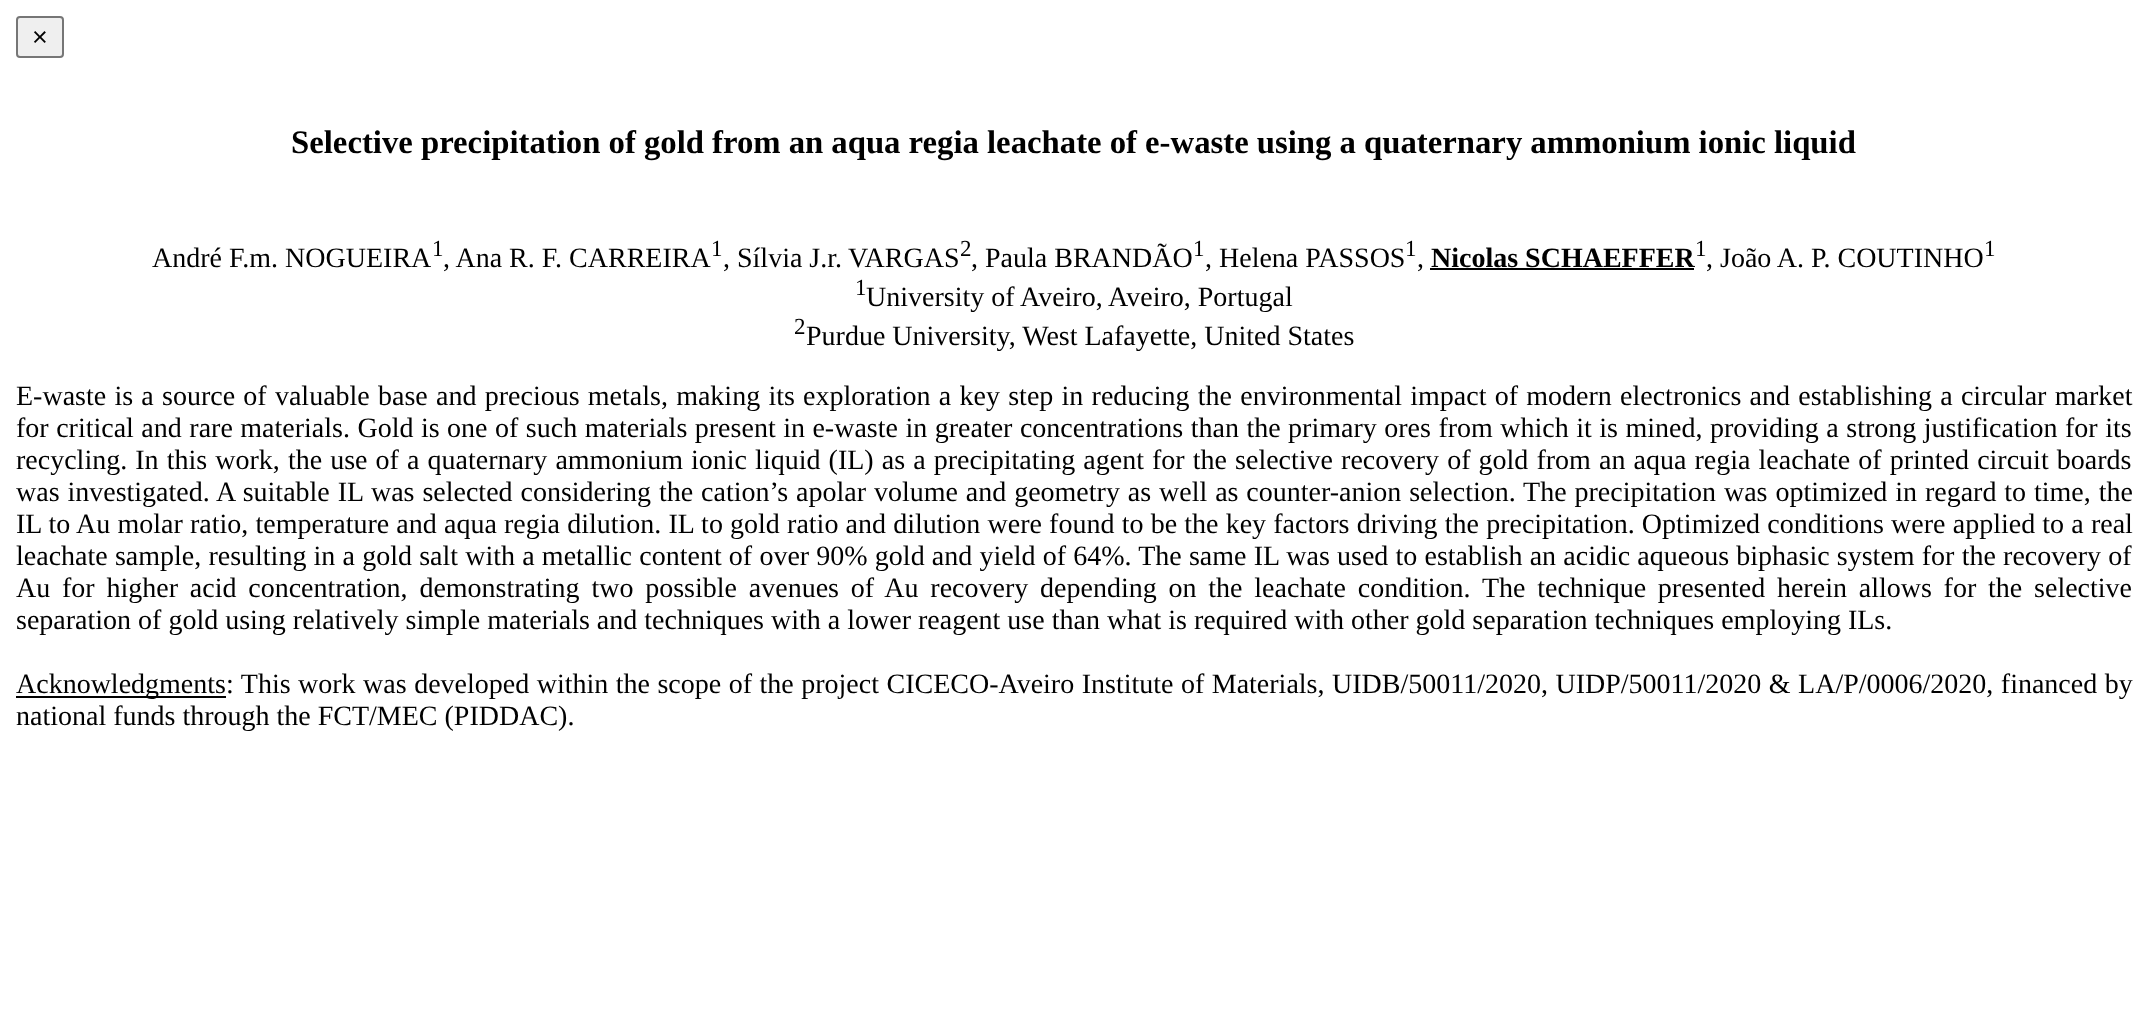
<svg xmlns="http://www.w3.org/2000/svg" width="2147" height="1030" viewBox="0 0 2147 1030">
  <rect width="100%" height="100%" fill="rgb(255,255,255)"/>
  <rect x="17" y="17" width="46" height="40" rx="3" fill="rgb(239,239,239)" stroke="rgb(118,118,118)" stroke-width="2"/>
  <text x="32" y="46" font-family="Liberation Sans" font-size="27" fill="rgb(0,0,0)">×</text>
  <text x="291" y="153" word-spacing="-0.1" font-family="Liberation Serif" font-size="32.75" font-weight="bold" fill="rgb(0,0,0)">Selective precipitation of gold from an aqua regia leachate of e-waste using a quaternary ammonium ionic liquid</text>
  <text x="152" y="267" font-family="Liberation Serif" font-size="28" fill="rgb(0,0,0)">André F.m. NOGUEIRA</text>
  <text x="432" y="256" font-family="Liberation Serif" font-size="23" fill="rgb(0,0,0)">1</text>
  <text x="443" y="267" font-family="Liberation Serif" font-size="28" fill="rgb(0,0,0)">, Ana R. F. CARREIRA</text>
  <text x="711" y="256" font-family="Liberation Serif" font-size="23" fill="rgb(0,0,0)">1</text>
  <g font-family="Liberation Serif" font-size="28" fill="rgb(0,0,0)">
    <text x="723" y="267">, Sílvia J.r.</text>
    <text x="848" y="267">VARGAS</text>
  </g>
  <text x="960" y="256" font-family="Liberation Serif" font-size="23" fill="rgb(0,0,0)">2</text>
  <text x="971" y="267" font-family="Liberation Serif" font-size="28" fill="rgb(0,0,0)">, Paula BRANDÃO</text>
  <text x="1193" y="256" font-family="Liberation Serif" font-size="23" fill="rgb(0,0,0)">1</text>
  <text x="1205" y="267" font-family="Liberation Serif" font-size="28" fill="rgb(0,0,0)">, Helena PASSOS</text>
  <text x="1405" y="256" font-family="Liberation Serif" font-size="23" fill="rgb(0,0,0)">1</text>
  <text x="1417" y="267" font-family="Liberation Serif" font-size="28" fill="rgb(0,0,0)">,</text>
  <text x="1431" y="267" font-family="Liberation Serif" font-size="28" font-weight="bold" fill="rgb(0,0,0)">Nicolas SCHAEFFER</text>
  <rect x="1430" y="268" width="264" height="2" fill="rgb(0,0,0)"/>
  <text x="1695" y="256" font-family="Liberation Serif" font-size="23" fill="rgb(0,0,0)">1</text>
  <text x="1706" y="267" font-family="Liberation Serif" font-size="28" fill="rgb(0,0,0)">, João A. P. COUTINHO</text>
  <g font-family="Liberation Serif" font-size="23" fill="rgb(0,0,0)">
    <text x="1984" y="256">1</text>
    <text x="855" y="295">1</text>
  </g>
  <text x="866" y="306" font-family="Liberation Serif" font-size="28" fill="rgb(0,0,0)">University of Aveiro, Aveiro, Portugal</text>
  <text x="794" y="334" font-family="Liberation Serif" font-size="23" fill="rgb(0,0,0)">2</text>
  <g font-family="Liberation Serif" font-size="28" fill="rgb(0,0,0)">
    <text x="806" y="345">Purdue University, West Lafayette, United States</text>
    <text>
      <tspan x="16" y="405" word-spacing="1.25">E-waste is a source of valuable base and precious metals, making its exploration a key step in reducing the environmental impact of modern electronics and establishing a circular market</tspan>
      <tspan x="16" y="437" word-spacing="0.5">for critical and rare materials. Gold is one of such materials present in e-waste in greater concentrations than the primary ores from which it is mined, providing a strong justification for its</tspan>
      <tspan x="16" y="469" word-spacing="1.1">recycling. In this work, the use of a quaternary ammonium ionic liquid (IL) as a precipitating agent for the selective recovery of gold from an aqua regia leachate of printed circuit boards</tspan>
      <tspan x="16" y="501" word-spacing="0.9">was investigated. A suitable IL was selected considering the cation’s apolar volume and geometry as well as counter-anion selection. The precipitation was optimized in regard to time, the</tspan>
      <tspan x="16" y="533" word-spacing="0.2">IL to Au molar ratio, temperature and aqua regia dilution. IL to gold ratio and dilution were found to be the key factors driving the precipitation. Optimized conditions were applied to a real</tspan>
      <tspan x="16" y="565" word-spacing="0.2">leachate sample, resulting in a gold salt with a metallic content of over 90% gold and yield of 64%. The same IL was used to establish an acidic aqueous biphasic system for the recovery of</tspan>
      <tspan x="16" y="597" word-spacing="4.8">Au for higher acid concentration, demonstrating two possible avenues of Au recovery depending on the leachate condition. The technique presented herein allows for the selective</tspan>
      <tspan x="16" y="629">separation of gold using relatively simple materials and techniques with a lower reagent use than what is required with other gold separation techniques employing ILs.</tspan>
    </text>
  </g>
  <rect x="16" y="696" width="210" height="2" fill="rgb(0,0,0)"/>
  <g font-family="Liberation Serif" font-size="28" fill="rgb(0,0,0)">
    <text x="16" y="693">Acknowledgments</text>
    <text x="226" y="693" word-spacing="0.5">: This work was developed within the scope of the project CICECO-Aveiro Institute of Materials, UIDB/50011/2020, UIDP/50011/2020 &amp; LA/P/0006/2020, financed by</text>
    <text x="16" y="725">national funds through the FCT/MEC (PIDDAC).</text>
  </g>
</svg>
